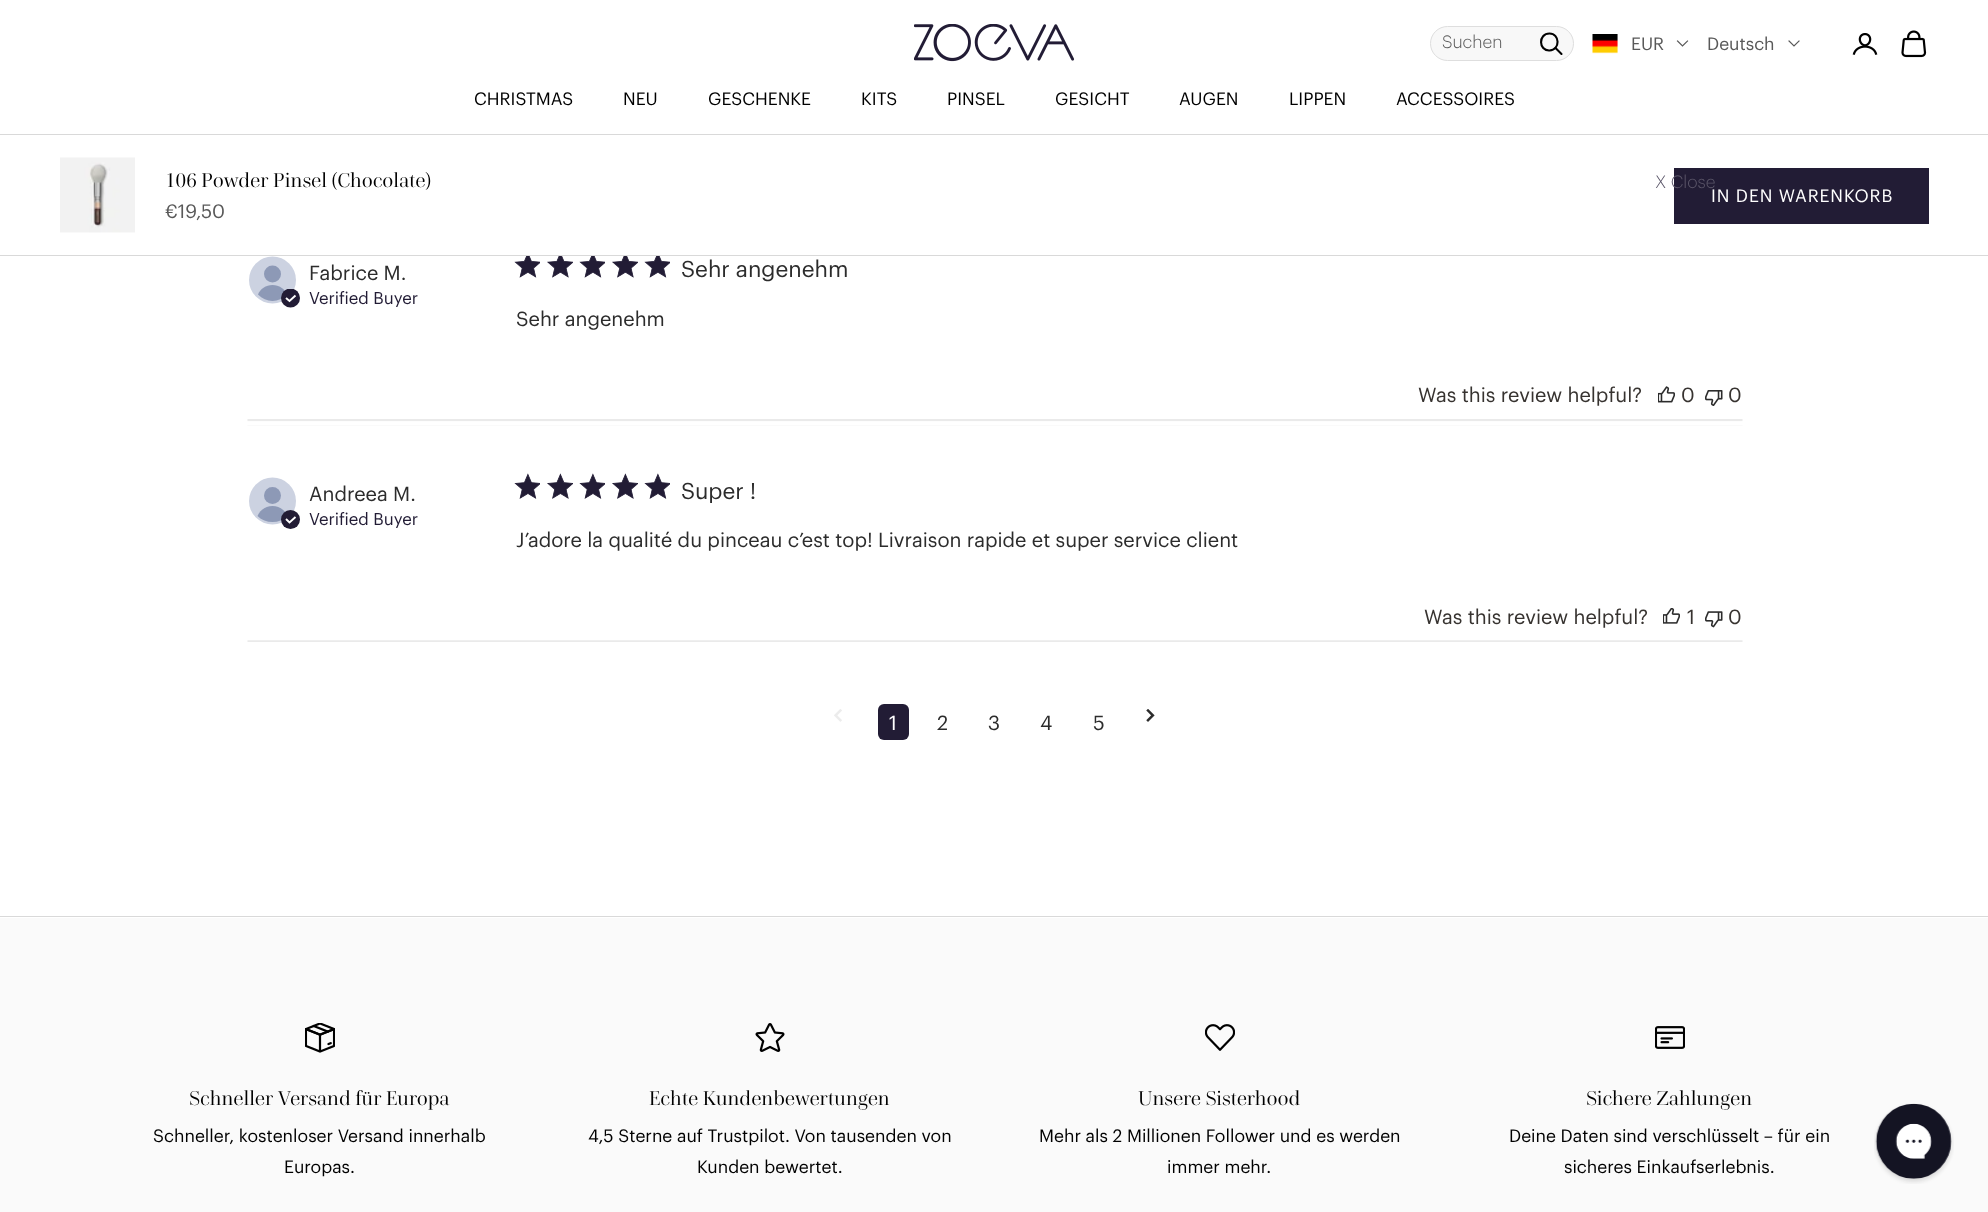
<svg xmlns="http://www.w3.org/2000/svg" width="1988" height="1212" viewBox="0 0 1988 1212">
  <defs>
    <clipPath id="clip1"><rect x="281" y="289" width="19" height="19"/></clipPath>
  </defs>
  <rect width="100%" height="100%" fill="rgb(255,255,255)"/>
  <rect x="0" y="134" width="1988" height="1" fill="rgb(217,217,217)"/>
  <image x="914" y="24" width="161" height="38" href="pic1.png"/>
  <rect x="1430.5" y="26.5" width="143" height="34" rx="17" fill="rgb(248,248,248)" stroke="rgb(222,222,222)"/>
  <text x="1442" y="48" font-family="Graphik" font-size="17.5" font-weight="300" fill="rgb(89,89,89)">Suchen</text>
  <path d="M1549.5 33.5C1538 33.5 1538.5 51 1549.5 50.5C1560.5 50 1560 33.5 1549.5 33.5Z" fill="none" stroke="rgb(0,0,0)" stroke-width="2.1"/>
  <path d="M1555.5 48L1561.5 54" fill="none" stroke="rgb(0,0,0)" stroke-width="2.1" stroke-linecap="round"/>
  <image x="1592" y="34" width="26" height="20" href="pic2.png"/>
  <text x="1631" y="50" font-family="Graphik" font-size="17.5" fill="rgb(89,89,89)">EUR</text>
  <path d="M1677.5 41L1682.5 46L1687.5 41" fill="none" stroke="rgb(89,89,89)" stroke-width="1.2" stroke-linecap="square"/>
  <text x="1707" y="50" font-family="Graphik" font-size="17.5" fill="rgb(89,89,89)">Deutsch</text>
  <path d="M1789 41L1794 46L1799 41" fill="none" stroke="rgb(89,89,89)" stroke-width="1.2" stroke-linecap="square"/>
  <image x="1852" y="33" width="26" height="22" href="pic3.png"/>
  <image x="1901" y="30" width="26" height="28" href="pic4.png"/>
  <g font-family="Graphik" font-size="17.5" fill="rgb(0,0,0)">
    <text x="474" y="105">CHRISTMAS</text>
    <text x="623" y="105">NEU</text>
    <text x="708" y="105">GESCHENKE</text>
    <text x="861" y="105">KITS</text>
    <text x="947" y="105">PINSEL</text>
    <text x="1055" y="105">GESICHT</text>
    <text x="1179" y="105">AUGEN</text>
    <text x="1289" y="105">LIPPEN</text>
    <text x="1396" y="105">ACCESSOIRES</text>
  </g>
  <rect x="0" y="255" width="1988" height="1" fill="rgb(217,217,217)"/>
  <image x="60" y="157" width="75" height="76" href="pic5.png"/>
  <text x="165" y="187" font-family="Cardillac" font-size="20" fill="rgb(0,0,0)">106 Powder Pinsel (Chocolate)</text>
  <text x="165" y="218" font-family="Graphik" font-size="19" fill="rgb(89,89,89)">€19,50</text>
  <rect x="1674.5" y="168.5" width="254" height="55" fill="rgb(34,28,53)" stroke="rgb(34,28,53)"/>
  <text x="1711" y="202" font-family="Graphik" font-size="17.5" letter-spacing="0.9" fill="rgb(255,255,255)">IN DEN WARENKORB</text>
  <circle cx="272.5" cy="280" r="23.5" fill="rgb(204,210,225)"/>
  <circle cx="272.5" cy="274" r="8.5" fill="rgb(141,153,182)"/>
  <path d="M272.5 285C279 285 285 289 287 294.5C279 303 266 303 258 294.5C260 289 266 285 272.5 285Z" fill="rgb(141,153,182)"/>
  <g clip-path="url(#clip1)">
    <circle cx="290.5" cy="298" r="9.5" fill="rgb(34,28,53)"/>
  </g>
  <path d="M286 298L289.5 301L295.5 295.5" fill="none" stroke="rgb(255,255,255)" stroke-width="1.9"/>
  <text x="309" y="280" font-family="Graphik" font-size="20" fill="rgb(44,44,44)">Fabrice M.</text>
  <text x="309" y="304" font-family="Graphik" font-size="16.75" fill="rgb(34,28,53)">Verified Buyer</text>
  <image x="514" y="256" width="26" height="22" href="pic6.png"/>
  <image x="547" y="256" width="26" height="22" href="pic7.png"/>
  <image x="579" y="256" width="26" height="22" href="pic6.png"/>
  <image x="612" y="256" width="26" height="22" href="pic7.png"/>
  <image x="644" y="256" width="26" height="22" href="pic6.png"/>
  <text x="681" y="277" font-family="Graphik" font-size="22.5" fill="rgb(44,44,44)">Sehr angenehm</text>
  <text x="516" y="326" font-family="Graphik" font-size="20" fill="rgb(44,44,44)">Sehr angenehm</text>
  <text x="1418" y="402" font-family="Graphik" font-size="20" fill="rgb(55,51,48)">Was this review helpful?</text>
  <image x="1658" y="386" width="17" height="17" href="pic8.png"/>
  <text x="1681" y="402" font-family="Graphik" font-size="20" fill="rgb(55,51,48)">0</text>
  <image x="1705" y="390" width="18" height="16" href="pic9.png"/>
  <text x="1728" y="402" font-family="Graphik" font-size="20" fill="rgb(55,51,48)">0</text>
  <image x="247" y="419" width="1496" height="7" href="pic10.png"/>
  <circle cx="272.5" cy="501" r="23.5" fill="rgb(204,210,225)"/>
  <circle cx="272.5" cy="495.5" r="8.5" fill="rgb(141,153,182)"/>
  <path d="M272.5 506C279 506 285 510 287.5 516C279.5 524 265.5 524 257.5 516C260 510 266 506 272.5 506Z" fill="rgb(141,153,182)"/>
  <circle cx="290.5" cy="519.5" r="9.5" fill="rgb(34,28,53)"/>
  <path d="M286 519L289.5 522.5L295.5 517" fill="none" stroke="rgb(255,255,255)" stroke-width="1.9"/>
  <text x="309" y="501" font-family="Graphik" font-size="20" fill="rgb(44,44,44)">Andreea M.</text>
  <text x="309" y="525" font-family="Graphik" font-size="16.75" fill="rgb(34,28,53)">Verified Buyer</text>
  <image x="514" y="473" width="26" height="26" href="pic11.png"/>
  <image x="547" y="473" width="26" height="26" href="pic12.png"/>
  <image x="579" y="473" width="26" height="26" href="pic11.png"/>
  <image x="612" y="473" width="26" height="26" href="pic12.png"/>
  <image x="644" y="473" width="26" height="26" href="pic11.png"/>
  <text x="681" y="499" font-family="Graphik" font-size="22.5" fill="rgb(44,44,44)">Super !</text>
  <text x="516" y="547" font-family="Graphik" font-size="20" fill="rgb(44,44,44)">J’adore la qualité du pinceau c’est top! Livraison rapide et super service client</text>
  <text x="1424" y="624" font-family="Graphik" font-size="20" fill="rgb(55,51,48)">Was this review helpful?</text>
  <image x="1663" y="608" width="17" height="16" href="pic13.png"/>
  <text x="1687" y="624" font-family="Graphik" font-size="20" fill="rgb(55,51,48)">1</text>
  <image x="1705" y="611" width="18" height="17" href="pic14.png"/>
  <text x="1728" y="624" font-family="Graphik" font-size="20" fill="rgb(55,51,48)">0</text>
  <image x="247" y="640" width="1496" height="2" href="pic15.png"/>
  <image x="834" y="709" width="8" height="13" href="pic16.png"/>
  <rect x="878" y="704" width="31" height="36" rx="6" fill="rgb(34,28,53)"/>
  <text x="889" y="730" font-family="Graphik" font-size="20" fill="rgb(255,255,255)">1</text>
  <g font-family="Graphik" font-size="20" fill="rgb(44,44,44)">
    <text x="937" y="730">2</text>
    <text x="988" y="730">3</text>
    <text x="1040" y="730">4</text>
    <text x="1093" y="730">5</text>
  </g>
  <image x="1146" y="709" width="9" height="13" href="pic17.png"/>
  <rect x="0" y="918" width="1988" height="294" fill="rgb(250,250,250)"/>
  <rect x="0" y="916" width="1988" height="1" fill="rgb(217,217,217)"/>
  <image x="305" y="1023" width="30" height="30" href="pic18.png"/>
  <text x="189" y="1105" font-family="Cardillac" font-size="20" fill="rgb(0,0,0)">Schneller Versand für Europa</text>
  <g font-family="Graphik" font-size="17.5" fill="rgb(0,0,0)">
    <text x="153" y="1142">Schneller, kostenloser Versand innerhalb</text>
    <text x="284" y="1173">Europas.</text>
  </g>
  <image x="755" y="1023" width="30" height="29" href="pic19.png"/>
  <text x="649" y="1105" font-family="Cardillac" font-size="20" fill="rgb(0,0,0)">Echte Kundenbewertungen</text>
  <g font-family="Graphik" font-size="17.5" fill="rgb(0,0,0)">
    <text x="588" y="1142">4,5 Sterne auf Trustpilot. Von tausenden von</text>
    <text x="697" y="1173">Kunden bewertet.</text>
  </g>
  <image x="1205" y="1024" width="30" height="27" href="pic20.png"/>
  <text x="1138" y="1105" font-family="Cardillac" font-size="20" fill="rgb(0,0,0)">Unsere Sisterhood</text>
  <g font-family="Graphik" font-size="17.5" fill="rgb(0,0,0)">
    <text x="1039" y="1142">Mehr als 2 Millionen Follower und es werden</text>
    <text x="1167" y="1173">immer mehr.</text>
  </g>
  <image x="1655" y="1026" width="30" height="23" href="pic21.png"/>
  <text x="1586" y="1105" font-family="Cardillac" font-size="20" fill="rgb(0,0,0)">Sichere Zahlungen</text>
  <g font-family="Graphik" font-size="17.5" fill="rgb(0,0,0)">
    <text x="1509" y="1142">Deine Daten sind verschlüsselt – für ein</text>
    <text x="1564" y="1173">sicheres Einkaufserlebnis.</text>
  </g>
  <text x="1655" y="188" font-family="Graphik" font-size="17.5" font-weight="300" fill="rgb(91,86,105)">X Close</text>
  <image x="1874" y="1103" width="80" height="81" href="pic22.png"/>
</svg>
